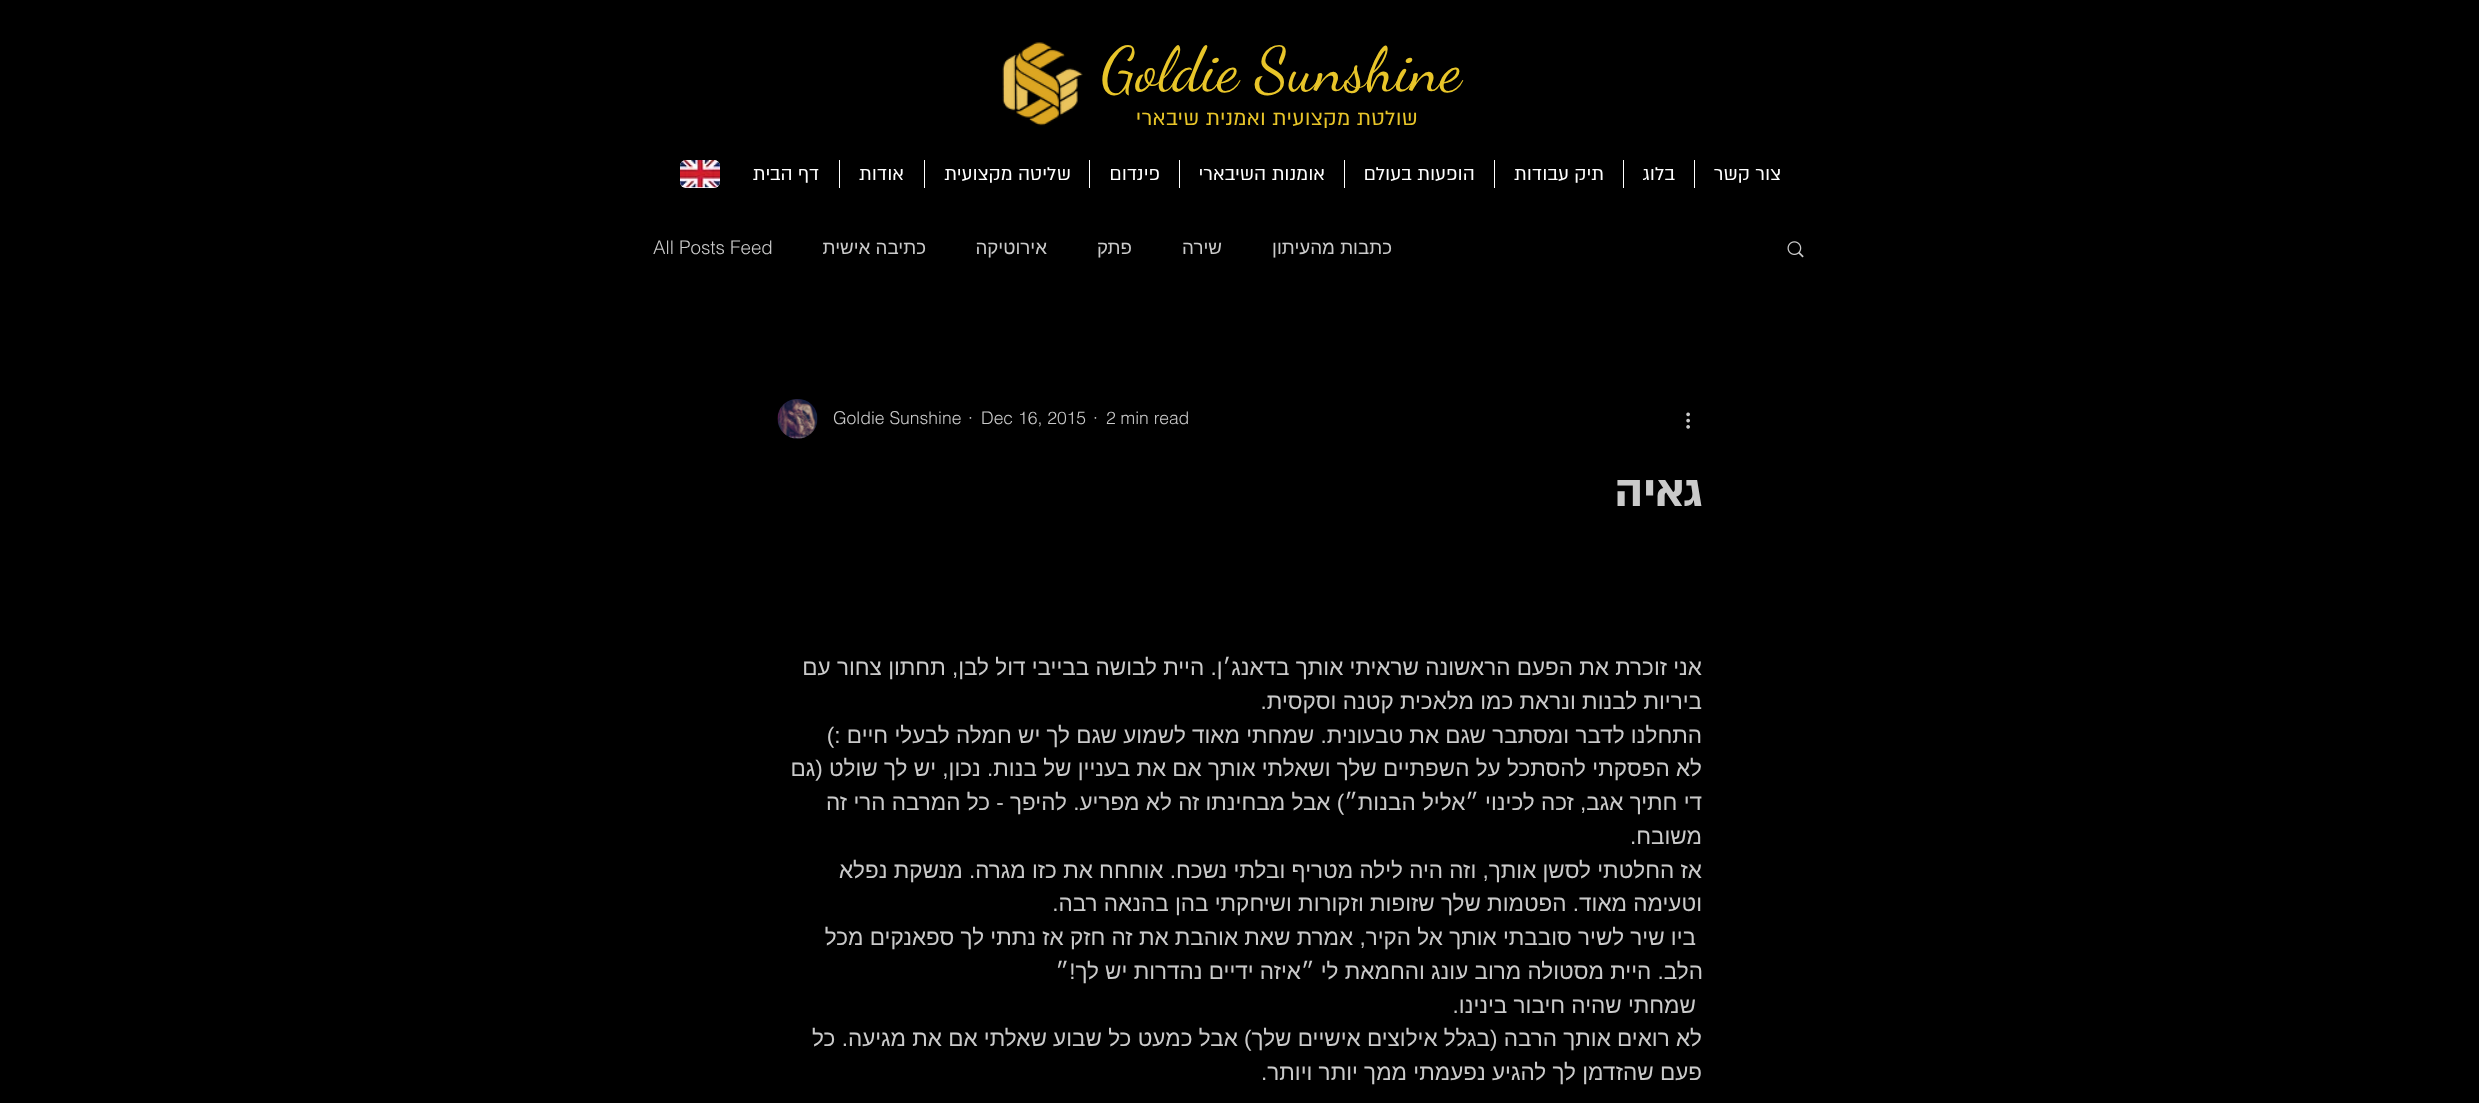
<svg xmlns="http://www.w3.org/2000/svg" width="2479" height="1103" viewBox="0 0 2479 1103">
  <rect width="100%" height="100%" fill="rgb(0,0,0)"/>
  <text x="1101" y="90" font-family="Dancing Script" font-size="62.5" fill="rgb(232,197,41)">Goldie Sunshine</text>
  <image x="1002" y="42" width="81" height="84" href="pic1.png"/>
  <text x="1418" y="125" font-family="'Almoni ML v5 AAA'" font-size="23.75" letter-spacing="0.25" direction="rtl" fill="rgb(232,197,41)">שולטת מקצועית ואמנית שיבארי</text>
  <rect x="1694" y="160" width="1" height="28" fill="rgb(255,255,255)"/>
  <text x="1781" y="180" font-family="'Almoni ML v5 AAA'" font-size="21.25" direction="rtl" fill="rgb(255,255,255)">צור קשר</text>
  <rect x="1623" y="160" width="1" height="28" fill="rgb(255,255,255)"/>
  <text x="1675" y="180" font-family="'Almoni ML v5 AAA'" font-size="21.25" direction="rtl" fill="rgb(255,255,255)">בלוג</text>
  <rect x="1494" y="160" width="1" height="28" fill="rgb(255,255,255)"/>
  <text x="1604" y="180" font-family="'Almoni ML v5 AAA'" font-size="21.25" direction="rtl" fill="rgb(255,255,255)">תיק עבודות</text>
  <rect x="1344" y="160" width="1" height="28" fill="rgb(255,255,255)"/>
  <text x="1475" y="180" font-family="'Almoni ML v5 AAA'" font-size="21.25" direction="rtl" fill="rgb(255,255,255)">הופעות בעולם</text>
  <rect x="1179" y="160" width="1" height="28" fill="rgb(255,255,255)"/>
  <text x="1325" y="180" font-family="'Almoni ML v5 AAA'" font-size="21.25" direction="rtl" fill="rgb(255,255,255)">אומנות השיבארי</text>
  <rect x="1089" y="160" width="1" height="28" fill="rgb(255,255,255)"/>
  <text x="1160" y="180" font-family="'Almoni ML v5 AAA'" font-size="21.25" direction="rtl" fill="rgb(255,255,255)">פינדום</text>
  <rect x="924" y="160" width="1" height="28" fill="rgb(255,255,255)"/>
  <text x="1071" y="180" font-family="'Almoni ML v5 AAA'" font-size="21.25" direction="rtl" fill="rgb(255,255,255)">שליטה מקצועית</text>
  <rect x="839" y="160" width="1" height="28" fill="rgb(255,255,255)"/>
  <g font-family="'Almoni ML v5 AAA'" font-size="21.25" direction="rtl" fill="rgb(255,255,255)">
    <text x="904" y="180">אודות</text>
    <text x="819" y="180">דף הבית</text>
  </g>
  <rect x="680" y="160" width="40" height="28" rx="6" fill="rgb(255,255,255)"/>
  <image x="680" y="160" width="40" height="28" href="pic2.png"/>
  <image x="1787" y="241" width="17" height="17" href="pic3.png"/>
  <g font-family="Liberation Sans" font-size="18.75" direction="rtl" fill="rgb(202,202,202)">
    <text x="1392" y="254">כתבות מהעיתון</text>
    <text x="1222" y="254">שירה</text>
    <text x="1132" y="254">פתק</text>
    <text x="1047" y="254">אירוטיקה</text>
    <text x="926" y="254">כתיבה אישית</text>
  </g>
  <text x="653" y="254" font-family="helvetica" font-size="18.75" font-weight="300" fill="rgb(202,202,202)">All Posts Feed</text>
  <image x="1686" y="412" width="4" height="17" href="pic4.png"/>
  <g font-family="helvetica" font-size="17.5" font-weight="300" fill="rgb(202,202,202)">
    <text x="1106" y="424">2 min read</text>
    <text x="1093" y="424">·</text>
    <text x="981" y="424">Dec 16, 2015</text>
    <text x="968" y="424">·</text>
    <text x="833" y="424">Goldie Sunshine</text>
  </g>
  <image x="777" y="399" width="41" height="40" href="pic5.png"/>
  <text x="1702" y="506" font-family="'Almoni ML v5 AAA'" font-size="50" font-weight="bold" direction="rtl" fill="rgb(202,202,202)">גאיה</text>
  <g font-family="Liberation Sans" font-size="22.5" direction="rtl" fill="rgb(202,202,202)">
    <text>
      <tspan x="1702" y="675">אני זוכרת את הפעם הראשונה שראיתי אותך בדאנג׳ן. היית לבושה בבייבי דול לבן, תחתון צחור עם</tspan>
      <tspan x="1702" y="709">ביריות לבנות ונראת כמו מלאכית קטנה וסקסית.</tspan>
      <tspan x="1702" y="743">התחלנו לדבר ומסתבר שגם את טבעונית. שמחתי מאוד לשמוע שגם לך יש חמלה לבעלי חיים :)</tspan>
      <tspan x="1702" y="776">לא הפסקתי להסתכל על השפתיים שלך ושאלתי אותך אם את בעניין של בנות. נכון, יש לך שולט (גם</tspan>
      <tspan x="1702" y="810">די חתיך אגב, זכה לכינוי ״אליל הבנות״) אבל מבחינתו זה לא מפריע. להיפך - כל המרבה הרי זה</tspan>
      <tspan x="1702" y="844">משובח.</tspan>
      <tspan x="1702" y="878">אז החלטתי לסשן אותך, וזה היה לילה מטריף ובלתי נשכח. אוחחח את כזו מגרה. מנשקת נפלא</tspan>
      <tspan x="1702" y="911">וטעימה מאוד. הפטמות שלך שזופות וזקורות ושיחקתי בהן בהנאה רבה.</tspan>
    </text>
    <text x="1696" y="945">ביו שיר לשיר סובבתי אותך אל הקיר, אמרת שאת אוהבת את זה חזק אז נתתי לך ספאנקים מכל</text>
    <text x="1703" y="979">הלב. היית מסטולה מרוב עונג והחמאת לי ״איזה ידיים נהדרות יש לך!״</text>
    <text x="1696" y="1013">שמחתי שהיה חיבור בינינו.</text>
    <text>
      <tspan x="1702" y="1046">לא רואים אותך הרבה (בגלל אילוצים אישיים שלך) אבל כמעט כל שבוע שאלתי אם את מגיעה. כל</tspan>
      <tspan x="1702" y="1080">פעם שהזדמן לך להגיע נפעמתי ממך יותר ויותר.</tspan>
    </text>
  </g>
</svg>
